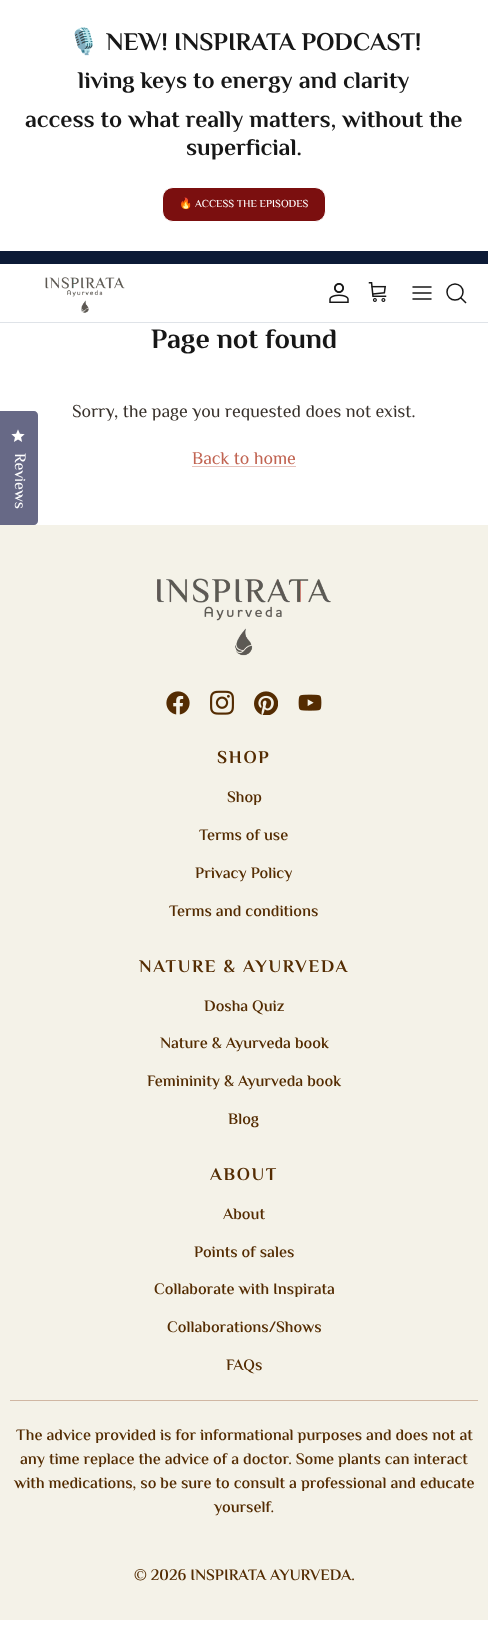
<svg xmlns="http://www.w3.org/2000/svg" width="488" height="1645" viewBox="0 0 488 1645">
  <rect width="100%" height="100%" fill="rgb(255,255,255)"/>
  <text x="68" y="50" font-family="Noto Color Emoji" font-size="25.25" font-weight="bold" fill="rgb(23,23,23)">🎙️</text>
  <text x="106" y="50" font-family="El Messiri" font-size="25.25" font-weight="bold" fill="rgb(23,23,23)">NEW! INSPIRATA PODCAST!</text>
  <g font-family="El Messiri" font-size="23.75" font-weight="bold" fill="rgb(23,23,23)">
    <text x="78" y="88">living keys to energy and clarity</text>
    <text x="25" y="127">access to what really matters, without the</text>
    <text x="186" y="155">superficial.</text>
  </g>
  <rect x="162.5" y="187.5" width="163" height="34" rx="10.5" fill="rgb(123,15,15)" stroke="rgb(255,255,255)"/>
  <text x="179" y="207" font-family="Noto Color Emoji" font-size="10.75" fill="rgb(255,255,255)">🔥</text>
  <text x="195" y="207" font-family="El Messiri" font-size="10.75" font-weight="500" fill="rgb(255,255,255)">ACCESS THE EPISODES</text>
  <rect x="0" y="251" width="488" height="13" fill="rgb(12,26,54)"/>
  <rect x="0" y="322" width="488" height="1" fill="rgb(223,227,232)"/>
  <image x="45" y="277" width="80" height="36" href="pic1.png"/>
  <image x="329" y="283" width="20" height="20" href="pic2.png"/>
  <image x="368" y="282" width="19" height="20" href="pic3.png"/>
  <path d="M413 293H431M413 287H431M413 299H431" fill="none" stroke="rgb(23,23,23)" stroke-width="1.5" stroke-linecap="round" stroke-linejoin="round"/>
  <circle cx="455" cy="292" r="8" fill="none" stroke="rgb(23,23,23)" stroke-width="1.5"/>
  <path d="M461 298L465.5 302.5" fill="none" stroke="rgb(23,23,23)" stroke-width="1.5" stroke-linecap="square"/>
  <text x="151" y="348" font-family="El Messiri" font-size="28" font-weight="bold" fill="rgb(23,23,23)">Page not found</text>
  <text x="72" y="417" font-family="El Messiri" font-size="18" fill="rgb(57,50,44)">Sorry, the page you requested does not exist.</text>
  <text x="192" y="464" font-family="El Messiri" font-size="18" fill="rgb(193,100,82)">Back to home</text>
  <rect x="192" y="466" width="104" height="1" fill="rgb(230,193,186)"/>
  <path d="M-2 411H34C36 411 38 413 38 415V521C38 523 36 525 34 525H-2Z" fill="rgb(103,105,134)"/>
  <image x="11" y="429" width="14" height="13" href="pic4.png"/>
  <text x="15" y="453" transform="rotate(90.1 15 453)" font-family="El Messiri" font-size="16" fill="rgb(255,255,255)">Reviews</text>
  <rect x="0" y="525" width="488" height="1095" fill="rgb(244,242,232)"/>
  <rect x="10" y="1400" width="468" height="1" fill="rgb(208,183,163)"/>
  <image x="157" y="578" width="174" height="78" href="pic5.png"/>
  <image x="166" y="691" width="24" height="24" href="pic6.png"/>
  <image x="210" y="690" width="24" height="25" href="pic7.png"/>
  <image x="254" y="691" width="24" height="24" href="pic8.png"/>
  <image x="298" y="694" width="24" height="17" href="pic9.png"/>
  <text x="217" y="763" font-family="El Messiri" font-size="18" font-weight="bold" letter-spacing="1.75" fill="rgb(84,44,2)">SHOP</text>
  <g font-family="El Messiri" font-size="16" font-weight="600" fill="rgb(84,44,2)">
    <text x="227" y="802">Shop</text>
    <text x="199" y="840">Terms of use</text>
    <text x="195" y="878">Privacy Policy</text>
    <text x="169" y="916">Terms and conditions</text>
  </g>
  <text x="139" y="972" font-family="El Messiri" font-size="18" font-weight="bold" letter-spacing="1.75" fill="rgb(84,44,2)">NATURE &amp; AYURVEDA</text>
  <g font-family="El Messiri" font-size="16" font-weight="600" fill="rgb(84,44,2)">
    <text x="204" y="1011">Dosha Quiz</text>
    <text x="160" y="1048">Nature &amp; Ayurveda book</text>
    <text x="147" y="1086">Femininity &amp; Ayurveda book</text>
    <text x="228" y="1124">Blog</text>
  </g>
  <text x="210" y="1180" font-family="El Messiri" font-size="18" font-weight="bold" letter-spacing="1.75" fill="rgb(84,44,2)">ABOUT</text>
  <g font-family="El Messiri" font-size="16" font-weight="600" fill="rgb(84,44,2)">
    <text x="223" y="1219">About</text>
    <text x="194" y="1257">Points of sales</text>
    <text x="154" y="1294">Collaborate with Inspirata</text>
    <text x="167" y="1332">Collaborations/Shows</text>
    <text x="226" y="1370">FAQs</text>
    <text x="16" y="1440">The advice provided is for informational purposes and does not at</text>
    <text x="20" y="1464">any time replace the advice of a doctor. Some plants can interact</text>
    <text x="14" y="1488">with medications, so be sure to consult a professional and educate</text>
    <text x="214" y="1512">yourself.</text>
    <text x="134" y="1580">© 2026 INSPIRATA AYURVEDA.</text>
  </g>
</svg>
